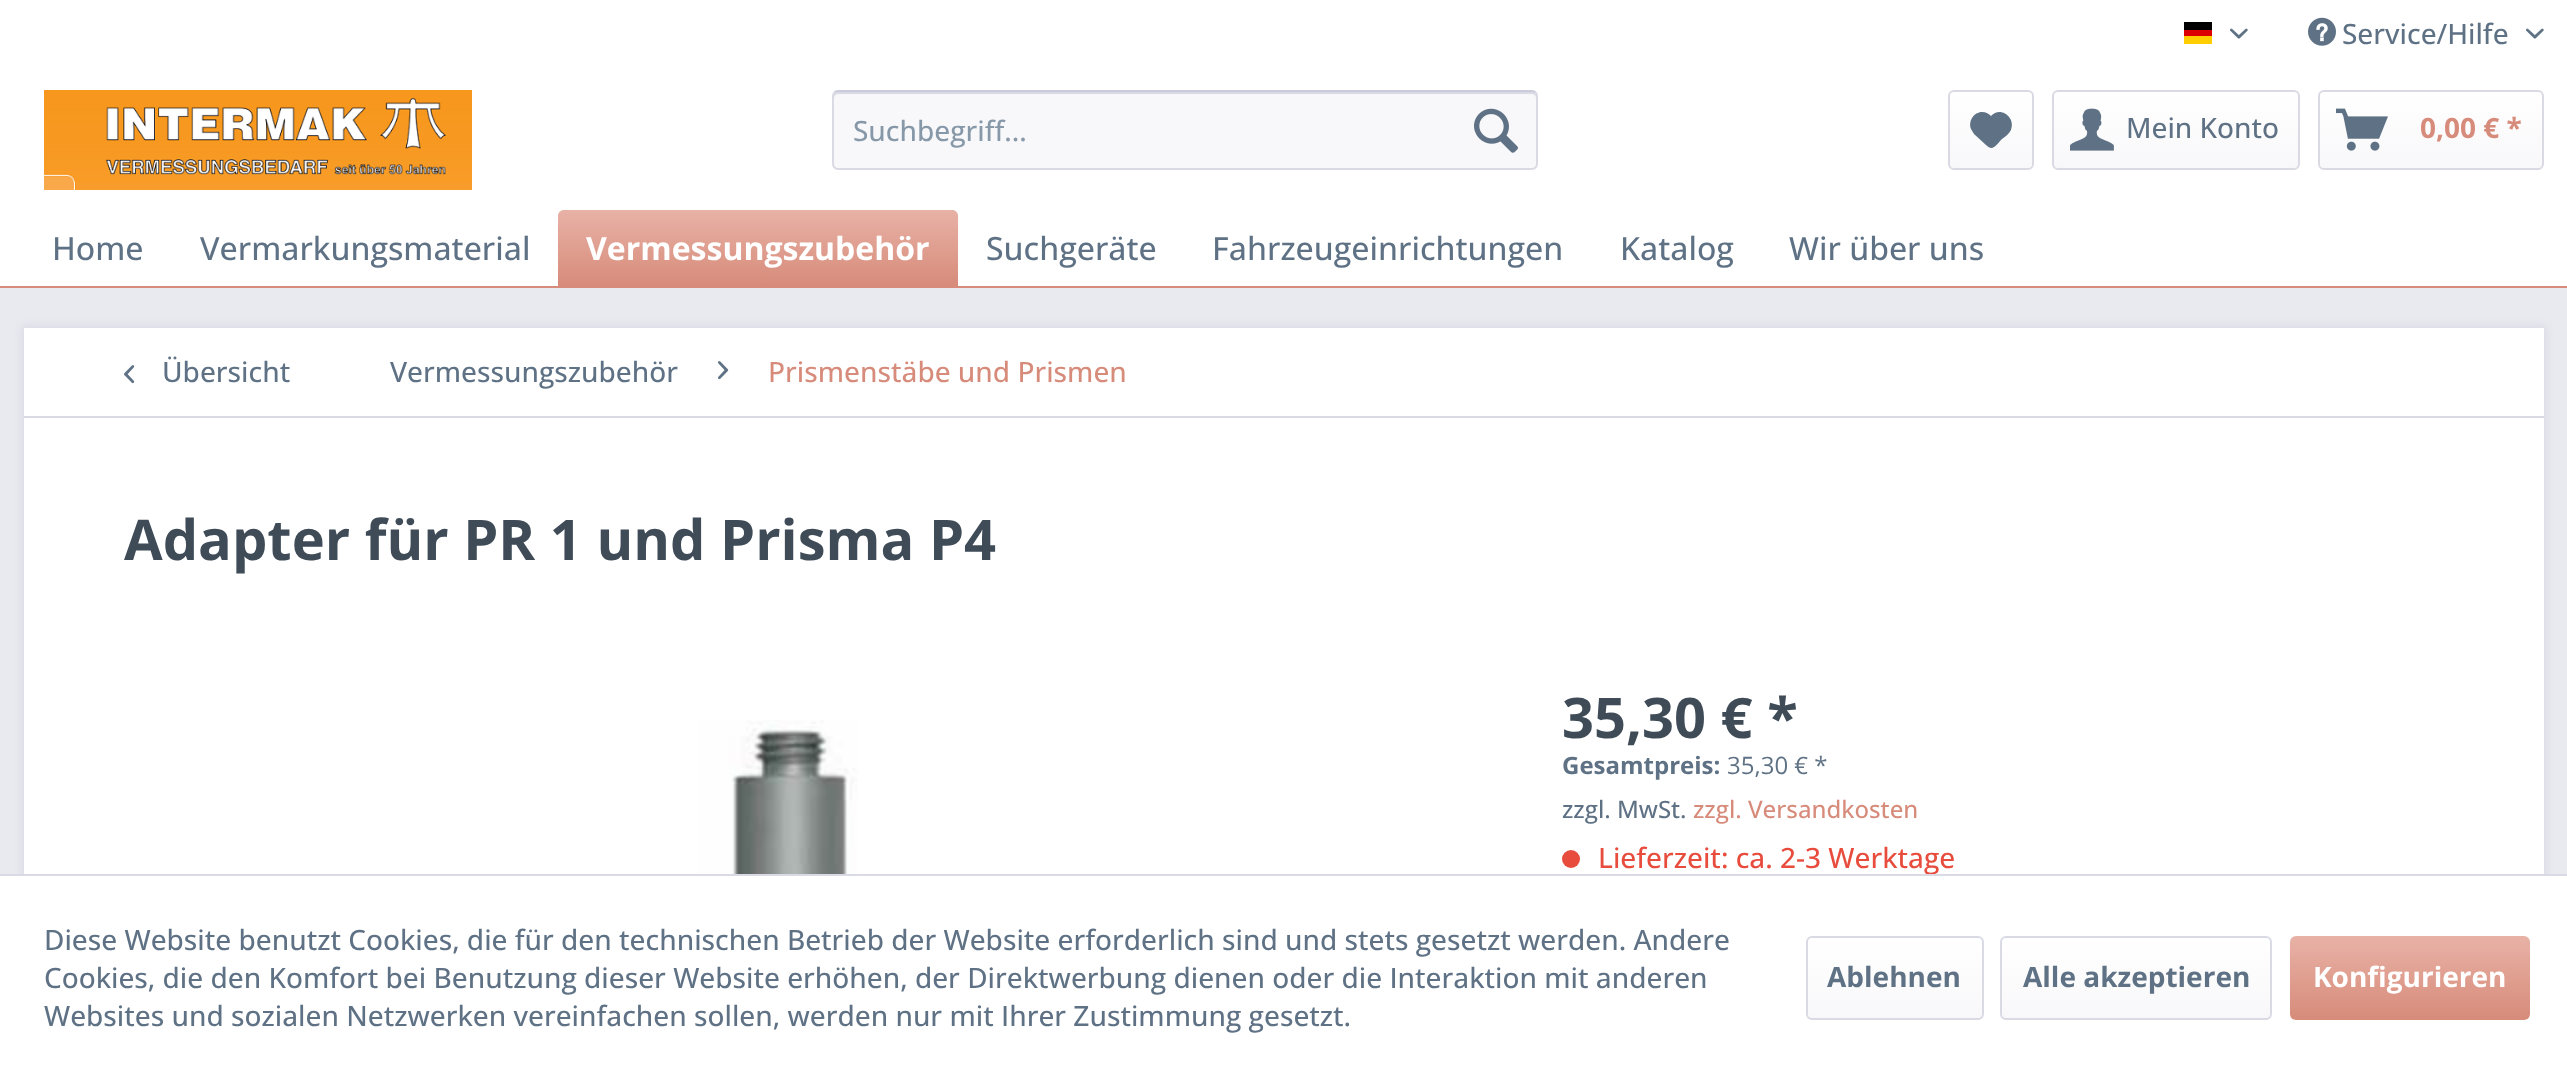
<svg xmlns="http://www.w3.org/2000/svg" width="2567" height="1078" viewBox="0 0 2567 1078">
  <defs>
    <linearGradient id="g1" gradientUnits="userSpaceOnUse" x1="1991" y1="92" x2="1991" y2="168"><stop offset="0" stop-color="rgb(255,255,255)"/><stop offset="1" stop-color="rgb(248,248,250)"/></linearGradient>
    <linearGradient id="g2" gradientUnits="userSpaceOnUse" x1="2176" y1="92" x2="2176" y2="168"><stop offset="0" stop-color="rgb(255,255,255)"/><stop offset="1" stop-color="rgb(248,248,250)"/></linearGradient>
    <linearGradient id="g3" gradientUnits="userSpaceOnUse" x1="2431" y1="92" x2="2431" y2="168"><stop offset="0" stop-color="rgb(255,255,255)"/><stop offset="1" stop-color="rgb(248,248,250)"/></linearGradient>
    <linearGradient id="g4" gradientUnits="userSpaceOnUse" x1="758" y1="210" x2="758" y2="286"><stop offset="0" stop-color="rgb(232,178,166)"/><stop offset="1" stop-color="rgb(215,139,122)"/></linearGradient>
    <linearGradient id="g5" gradientUnits="userSpaceOnUse" x1="1895" y1="938" x2="1895" y2="1018"><stop offset="0" stop-color="rgb(255,255,255)"/><stop offset="1" stop-color="rgb(248,248,250)"/></linearGradient>
    <linearGradient id="g6" gradientUnits="userSpaceOnUse" x1="2136" y1="938" x2="2136" y2="1018"><stop offset="0" stop-color="rgb(255,255,255)"/><stop offset="1" stop-color="rgb(248,248,250)"/></linearGradient>
    <linearGradient id="g7" gradientUnits="userSpaceOnUse" x1="2410" y1="936" x2="2410" y2="1020"><stop offset="0" stop-color="rgb(232,178,166)"/><stop offset="1" stop-color="rgb(215,139,122)"/></linearGradient>
  </defs>
  <rect width="100%" height="100%" fill="rgb(233,233,240)"/>
  <rect x="0" y="0" width="2567" height="286" fill="rgb(255,255,255)"/>
  <rect x="2184" y="22" width="28" height="8" fill="rgb(0,0,0)"/>
  <rect x="2184" y="30" width="28" height="6" fill="rgb(221,0,0)"/>
  <rect x="2184" y="36" width="28" height="8" fill="rgb(255,206,0)"/>
  <image x="2230" y="28" width="18" height="11" href="pic1.png"/>
  <image x="2308" y="17" width="28" height="29" href="pic2.png"/>
  <text x="2342" y="44" font-family="Open Sans" font-size="28" font-weight="500" fill="rgb(95,114,133)">Service/Hilfe</text>
  <image x="2526" y="28" width="18" height="11" href="pic1.png"/>
  <image x="44" y="90" width="428" height="100" href="pic3.png"/>
  <rect x="832" y="90" width="706" height="80" rx="6" fill="rgb(248,248,250)"/>
  <path d="M838 94H1532C1534 94 1536 96 1536 98C1536 95 1536 92 1532 92H838C834 92 834 95 834 98C834 96 836 94 838 94Z" fill="rgb(218,218,229)"/>
  <path d="M834.5 92.5C835.5 91.5 836.5 91 838 91H1532C1533.5 91 1534.5 91.5 1535.5 92.5" fill="none" stroke="rgb(203,203,219)" stroke-width="2"/>
  <path d="M1535.5 92.5C1536.5 93.5 1537 94.5 1537 96V164C1537 165.5 1536.5 166.5 1535.5 167.5C1534.5 168.5 1533.5 169 1532 169H838C836.5 169 835.5 168.5 834.5 167.5C833.5 166.5 833 165.5 833 164V96C833 94.5 833.5 93.5 834.5 92.5" fill="none" stroke="rgb(218,218,229)" stroke-width="2"/>
  <text x="853" y="141" font-family="Open Sans" font-size="28" font-weight="500" fill="rgb(135,152,169)">Suchbegriff...</text>
  <image x="1474" y="108" width="44" height="45" href="pic4.png"/>
  <rect x="1950" y="92" width="82" height="76" rx="4" fill="url(#g1)"/>
  <rect x="1949" y="91" width="84" height="78" rx="5" fill="none" stroke="rgb(218,218,229)" stroke-width="2"/>
  <path d="M1982 112C1974 112 1968 121 1971 129L1974 134L1986 145C1993 152 1996 145 2002 139C2005 137 2009 134 2011 130C2016 117 2000 106 1991 116C1989 114 1986 112 1982 112Z" fill="rgb(95,114,133)"/>
  <rect x="2054" y="92" width="244" height="76" rx="4" fill="url(#g2)"/>
  <rect x="2053" y="91" width="246" height="78" rx="5" fill="none" stroke="rgb(218,218,229)" stroke-width="2"/>
  <image x="2070" y="108" width="44" height="43" href="pic5.png"/>
  <text x="2126" y="138" font-family="Open Sans" font-size="28" font-weight="500" fill="rgb(95,114,133)">Mein Konto</text>
  <rect x="2320" y="92" width="222" height="76" rx="4" fill="url(#g3)"/>
  <rect x="2319" y="91" width="224" height="78" rx="5" fill="none" stroke="rgb(218,218,229)" stroke-width="2"/>
  <image x="2336" y="108" width="52" height="43" href="pic6.png"/>
  <text x="2420" y="138" font-family="Open Sans" font-size="28" font-weight="bold" fill="rgb(215,139,122)">0,00 € *</text>
  <rect x="0" y="286" width="2567" height="2" fill="rgb(215,139,122)"/>
  <g font-family="Open Sans" font-size="32" font-weight="500" fill="rgb(95,114,133)">
    <text x="52" y="260">Home</text>
    <text x="200" y="260">Vermarkungsmaterial</text>
  </g>
  <path d="M564 210H952C955.5 210 958 212.5 958 216V286H558V216C558 212.5 560.5 210 564 210Z" fill="url(#g4)"/>
  <text x="586" y="260" font-family="Open Sans" font-size="32" font-weight="bold" fill="rgb(255,255,255)">Vermessungszubehör</text>
  <g font-family="Open Sans" font-size="32" font-weight="500" fill="rgb(95,114,133)">
    <text x="986" y="260">Suchgeräte</text>
    <text x="1212" y="260">Fahrzeugeinrichtungen</text>
    <text x="1620" y="260">Katalog</text>
    <text x="1789" y="260">Wir über uns</text>
  </g>
  <rect x="22" y="326" width="2524" height="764" fill="rgb(218,218,229)" filter="blur(4px)"/>
  <rect x="24" y="328" width="2520" height="546" fill="rgb(255,255,255)"/>
  <rect x="24" y="416" width="2520" height="2" fill="rgb(218,218,229)"/>
  <image x="124" y="365" width="11" height="19" href="pic7.png"/>
  <g font-family="Open Sans" font-size="28" font-weight="500" fill="rgb(95,114,133)">
    <text x="162" y="382">Übersicht</text>
    <text x="390" y="382">Vermessungszubehör</text>
  </g>
  <image x="718" y="361" width="11" height="19" href="pic8.png"/>
  <text x="768" y="382" font-family="Open Sans" font-size="28" font-weight="500" fill="rgb(215,139,122)">Prismenstäbe und Prismen</text>
  <text x="124" y="560" font-family="Open Sans" font-size="56" font-weight="bold" fill="rgb(63,76,88)">Adapter für PR 1 und Prisma P4</text>
  <image x="698" y="720" width="160" height="154" href="pic9.png"/>
  <text x="1562" y="738" font-family="Open Sans" font-size="56" font-weight="bold" fill="rgb(63,76,88)">35,30 € *</text>
  <text x="1562" y="774" font-family="Open Sans" font-size="24" font-weight="bold" fill="rgb(95,114,133)">Gesamtpreis:</text>
  <text x="1727" y="774" font-family="Open Sans" font-size="24" fill="rgb(95,114,133)">35,30 € *</text>
  <text x="1562" y="818" font-family="Open Sans" font-size="24" font-weight="500" fill="rgb(95,114,133)">zzgl. MwSt.</text>
  <text x="1693" y="818" font-family="Open Sans" font-size="24" font-weight="500" fill="rgb(215,139,122)">zzgl. Versandkosten</text>
  <circle cx="1571" cy="859" r="9" fill="rgb(231,76,60)"/>
  <text x="1598" y="868" font-family="Open Sans" font-size="28" font-weight="500" fill="rgb(231,76,60)">Lieferzeit: ca. 2-3 Werktage</text>
  <rect x="0" y="876" width="2567" height="202" fill="rgb(255,255,255)"/>
  <rect x="0" y="874" width="2567" height="2" fill="rgb(218,218,229)"/>
  <g font-family="Open Sans" font-size="28" font-weight="500" fill="rgb(95,114,133)">
    <text>
      <tspan x="44" y="950">Diese Website benutzt Cookies, die für den technischen Betrieb der Website erforderlich sind und stets gesetzt werden. Andere</tspan>
      <tspan x="44" y="988">Cookies, die den Komfort bei Benutzung dieser Website erhöhen, der Direktwerbung dienen oder die Interaktion mit anderen</tspan>
      <tspan x="44" y="1026">Websites und sozialen Netzwerken vereinfachen sollen, werden nur mit Ihrer Zustimmung gesetzt.</tspan>
    </text>
  </g>
  <rect x="1808" y="938" width="174" height="80" rx="4" fill="url(#g5)"/>
  <rect x="1807" y="937" width="176" height="82" rx="5" fill="none" stroke="rgb(218,218,229)" stroke-width="2"/>
  <text x="1827" y="987" font-family="Open Sans" font-size="28" font-weight="bold" fill="rgb(95,114,133)">Ablehnen</text>
  <rect x="2002" y="938" width="268" height="80" rx="4" fill="url(#g6)"/>
  <rect x="2001" y="937" width="270" height="82" rx="5" fill="none" stroke="rgb(218,218,229)" stroke-width="2"/>
  <text x="2023" y="987" font-family="Open Sans" font-size="28" font-weight="bold" fill="rgb(95,114,133)">Alle akzeptieren</text>
  <rect x="2290" y="936" width="240" height="84" rx="6" fill="url(#g7)"/>
  <text x="2313" y="987" font-family="Open Sans" font-size="28" font-weight="bold" fill="rgb(255,255,255)">Konfigurieren</text>
</svg>
